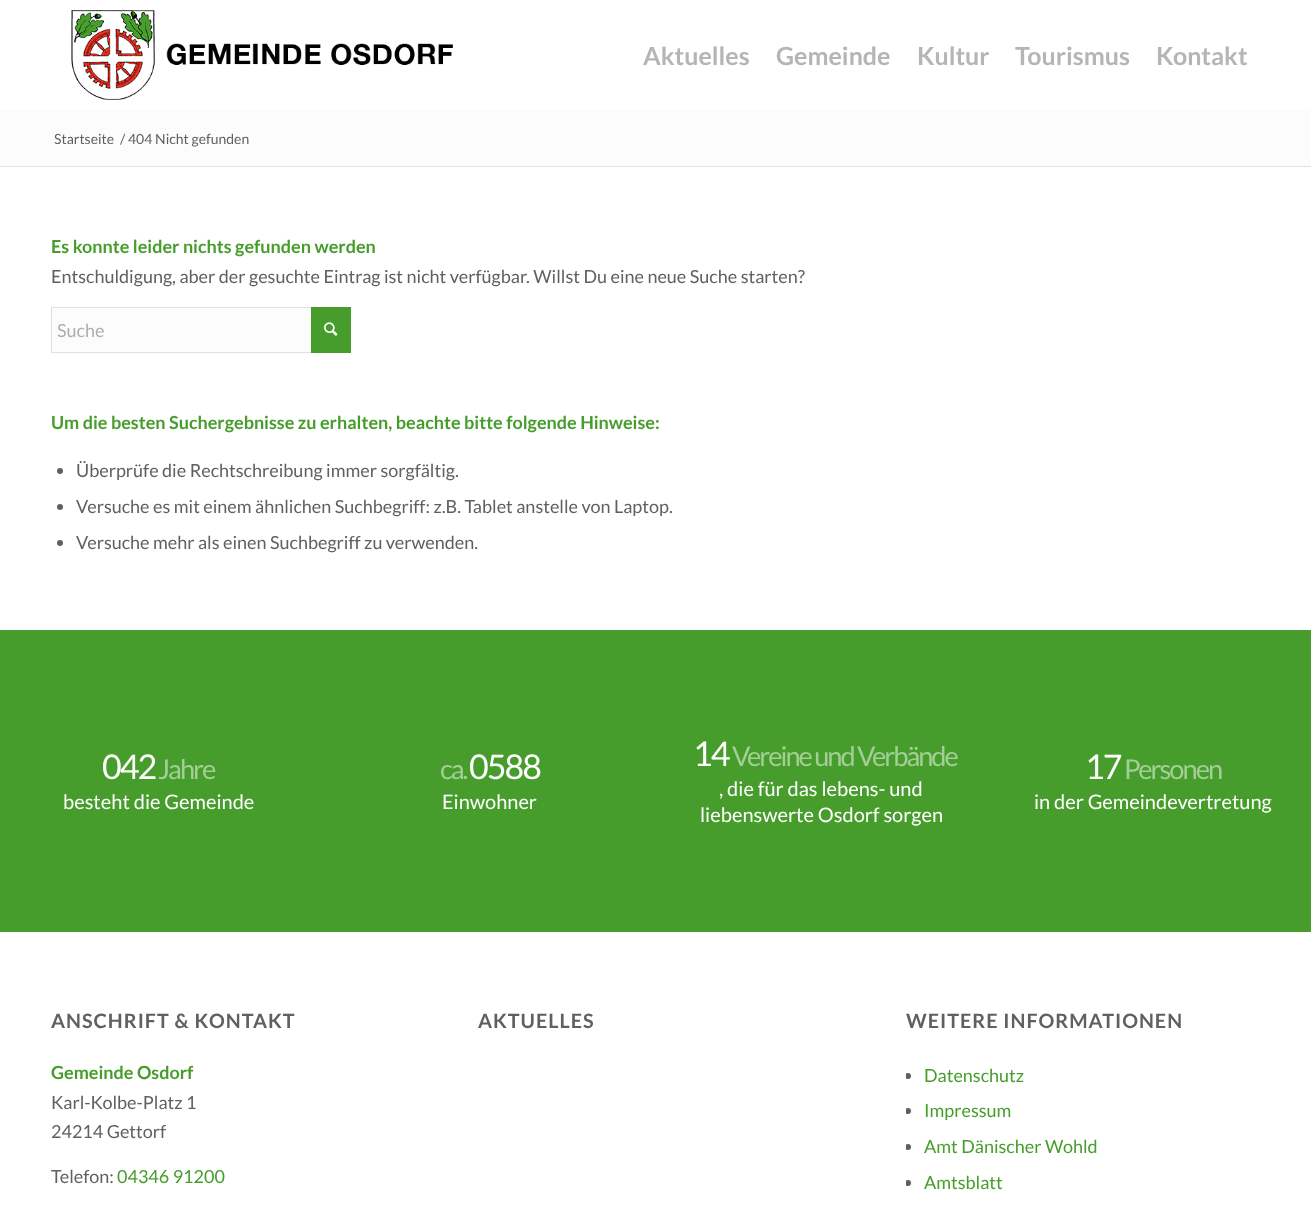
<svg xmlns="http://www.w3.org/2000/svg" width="1311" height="1206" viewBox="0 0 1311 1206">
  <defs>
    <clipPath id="clip1"><rect x="906" y="1058" width="354" height="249"/></clipPath>
  </defs>
  <rect width="100%" height="100%" fill="rgb(255,255,255)"/>
  <image x="71" y="10" width="382" height="90" href="pic1.png"/>
  <g font-family="Lato" font-size="25" font-weight="bold" fill="rgb(181,181,181)">
    <text x="643" y="65">Aktuelles</text>
    <text x="776" y="65">Gemeinde</text>
    <text x="917" y="65">Kultur</text>
    <text x="1015" y="65">Tourismus</text>
    <text x="1156" y="65">Kontakt</text>
  </g>
  <rect x="0" y="110" width="1311" height="56" fill="rgb(252,252,252)"/>
  <g font-family="Lato" font-size="14" fill="rgb(96,96,96)">
    <text x="54" y="144">Startseite</text>
    <text x="120" y="144">/</text>
    <text x="128" y="144">404 Nicht gefunden</text>
  </g>
  <rect x="0" y="166" width="1311" height="1" fill="rgb(225,225,225)"/>
  <text x="51" y="253" font-family="Lato" font-size="18" font-weight="bold" fill="rgb(70,157,44)">Es konnte leider nichts gefunden werden</text>
  <text x="51" y="283" font-family="Lato" font-size="18" fill="rgb(96,96,96)">Entschuldigung, aber der gesuchte Eintrag ist nicht verfügbar. Willst Du eine neue Suche starten?</text>
  <rect x="52" y="308" width="259" height="44" fill="rgb(252,252,252)"/>
  <rect x="51.5" y="307.5" width="299" height="45" fill="none" stroke="rgb(225,225,225)"/>
  <text x="57" y="337" font-family="Lato" font-size="18" fill="rgb(174,174,174)">Suche</text>
  <rect x="311" y="307" width="40" height="46" fill="rgb(70,157,44)"/>
  <image x="324" y="322" width="14" height="14" href="pic2.png"/>
  <text x="51" y="429" font-family="Lato" font-size="18" font-weight="bold" fill="rgb(70,157,44)">Um die besten Suchergebnisse zu erhalten, beachte bitte folgende Hinweise:</text>
  <circle cx="60" cy="471" r="3" fill="rgb(96,96,96)"/>
  <text x="76" y="477" font-family="Lato" font-size="18" fill="rgb(96,96,96)">Überprüfe die Rechtschreibung immer sorgfältig.</text>
  <circle cx="60" cy="507" r="3" fill="rgb(96,96,96)"/>
  <text x="76" y="513" font-family="Lato" font-size="18" fill="rgb(96,96,96)">Versuche es mit einem ähnlichen Suchbegriff: z.B. Tablet anstelle von Laptop.</text>
  <circle cx="60" cy="543" r="3" fill="rgb(96,96,96)"/>
  <text x="76" y="549" font-family="Lato" font-size="18" fill="rgb(96,96,96)">Versuche mehr als einen Suchbegriff zu verwenden.</text>
  <rect x="0" y="630" width="1311" height="302" fill="rgb(70,157,44)"/>
  <text x="102" y="779" font-family="Lato" font-size="34" letter-spacing="-2" fill="rgb(255,255,255)">042</text>
  <text x="158" y="779" font-family="Lato" font-size="27.25" letter-spacing="-2" fill="rgb(163,206,150)">Jahre</text>
  <text x="63" y="809" font-family="Lato" font-size="20" fill="rgb(255,255,255)">besteht die Gemeinde</text>
  <text x="440" y="779" font-family="Lato" font-size="27.25" letter-spacing="-2" fill="rgb(163,206,150)">ca.</text>
  <text x="469" y="779" font-family="Lato" font-size="34" letter-spacing="-2" fill="rgb(255,255,255)">0588</text>
  <text x="442" y="809" font-family="Lato" font-size="20" fill="rgb(255,255,255)">Einwohner</text>
  <text x="693" y="766" font-family="Lato" font-size="34" letter-spacing="-2" fill="rgb(255,255,255)">14</text>
  <text x="732" y="766" font-family="Lato" font-size="27.25" letter-spacing="-2" fill="rgb(163,206,150)">Vereine und Verbände</text>
  <g font-family="Lato" font-size="20" fill="rgb(255,255,255)">
    <text x="719" y="796">, die für das lebens- und</text>
    <text x="700" y="822">liebenswerte Osdorf sorgen</text>
  </g>
  <text x="1085" y="779" font-family="Lato" font-size="34" letter-spacing="-2" fill="rgb(255,255,255)">17</text>
  <text x="1124" y="779" font-family="Lato" font-size="27.25" letter-spacing="-2" fill="rgb(163,206,150)">Personen</text>
  <text x="1034" y="809" font-family="Lato" font-size="20" fill="rgb(255,255,255)">in der Gemeindevertretung</text>
  <text x="51" y="1028" font-family="Lato" font-size="19.75" font-weight="bold" letter-spacing="1" fill="rgb(96,96,96)">ANSCHRIFT &amp; KONTAKT</text>
  <text x="51" y="1079" font-family="Lato" font-size="18" font-weight="bold" fill="rgb(70,157,44)">Gemeinde Osdorf</text>
  <g font-family="Lato" font-size="18" fill="rgb(96,96,96)">
    <text>
      <tspan x="51" y="1109">Karl-Kolbe-Platz 1</tspan>
      <tspan x="51" y="1138">24214 Gettorf</tspan>
    </text>
    <text x="51" y="1183">Telefon:</text>
  </g>
  <text x="117" y="1183" font-family="Lato" font-size="18" fill="rgb(70,157,44)">04346 91200</text>
  <g font-family="Lato" font-size="19.75" font-weight="bold" letter-spacing="1" fill="rgb(96,96,96)">
    <text x="478" y="1028">AKTUELLES</text>
    <text x="906" y="1028">WEITERE INFORMATIONEN</text>
  </g>
  <g clip-path="url(#clip1)">
    <circle cx="908" cy="1076" r="3" fill="rgb(96,96,96)"/>
  </g>
  <text x="924" y="1082" font-family="Lato" font-size="18" fill="rgb(70,157,44)">Datenschutz</text>
  <g clip-path="url(#clip1)">
    <circle cx="908" cy="1111" r="3" fill="rgb(96,96,96)"/>
  </g>
  <text x="924" y="1117" font-family="Lato" font-size="18" fill="rgb(70,157,44)">Impressum</text>
  <g clip-path="url(#clip1)">
    <circle cx="908" cy="1147" r="3" fill="rgb(96,96,96)"/>
  </g>
  <text x="924" y="1153" font-family="Lato" font-size="18" fill="rgb(70,157,44)">Amt Dänischer Wohld</text>
  <g clip-path="url(#clip1)">
    <circle cx="908" cy="1183" r="3" fill="rgb(96,96,96)"/>
  </g>
  <text x="924" y="1189" font-family="Lato" font-size="18" fill="rgb(70,157,44)">Amtsblatt</text>
</svg>
